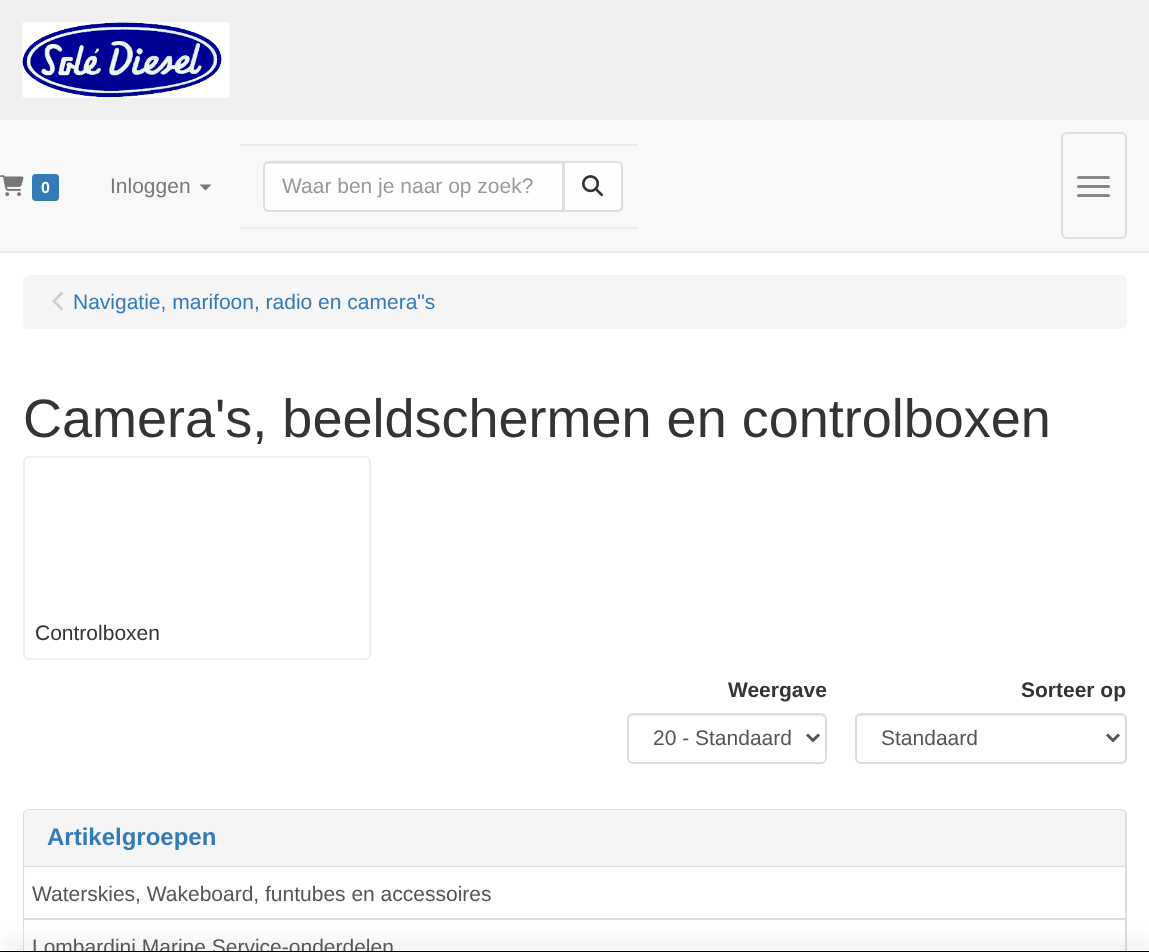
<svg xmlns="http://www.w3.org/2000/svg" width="1149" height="952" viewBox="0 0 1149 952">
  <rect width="100%" height="100%" fill="rgb(255,255,255)"/>
  <rect x="0" y="0" width="1149" height="120" fill="rgb(239,239,239)"/>
  <image x="22" y="22" width="208" height="76" href="pic1.png"/>
  <rect x="0" y="120" width="1149" height="131" fill="rgb(248,248,248)"/>
  <rect x="0" y="251" width="1149" height="2" fill="rgb(235,235,235)"/>
  <image x="0" y="175" width="24" height="22" href="pic2.png"/>
  <rect x="32" y="174" width="27" height="27" rx="4" fill="rgb(51,122,183)"/>
  <text x="41" y="193" font-family="Liberation Sans" font-size="16" font-weight="bold" fill="rgb(255,255,255)">0</text>
  <text x="110" y="193" font-family="Liberation Sans" font-size="21" fill="rgb(120,120,120)">Inloggen</text>
  <path d="M199.5 184.5H211.5L205.5 190.5Z" fill="rgb(120,120,120)"/>
  <rect x="240" y="144" width="398" height="2" fill="rgb(235,235,235)"/>
  <rect x="240" y="227" width="398" height="2" fill="rgb(235,235,235)"/>
  <path d="M269 161H564V212H269C265.5 212 263 209.5 263 206V167C263 163.5 265.5 161 269 161Z" fill="rgb(254,254,254)"/>
  <path d="M268 164H562V210H563V162H269C266 162 264 165 264 168C264 166 266 164 268 164Z" fill="rgb(235,235,235)"/>
  <path d="M269 162H563V211H269C266 211 264 209 264 206V167C264 164 266 162 269 162Z" fill="none" stroke="rgb(221,221,221)" stroke-width="2"/>
  <text x="282" y="193" font-family="Liberation Sans" font-size="21" fill="rgb(153,153,153)">Waar ben je naar op zoek?</text>
  <path d="M564 162H617C620 162 622 164 622 167V206C622 209 620 211 617 211H564Z" fill="rgb(254,254,254)" stroke="rgb(221,221,221)" stroke-width="2"/>
  <image x="582" y="175" width="21" height="22" href="pic3.png"/>
  <rect x="1062" y="133" width="64" height="105" rx="5" fill="none" stroke="rgb(221,221,221)" stroke-width="2"/>
  <rect x="1077" y="176" width="33" height="3" rx="1.5" fill="rgb(136,136,136)"/>
  <rect x="1077" y="185" width="33" height="3" rx="1.5" fill="rgb(136,136,136)"/>
  <rect x="1077" y="194" width="33" height="3" rx="1.5" fill="rgb(136,136,136)"/>
  <rect x="23" y="275" width="1104" height="54" rx="6" fill="rgb(245,245,245)"/>
  <image x="52" y="292" width="11" height="19" href="pic4.png"/>
  <text x="73" y="309" font-family="Liberation Sans" font-size="21" fill="rgb(51,122,183)">Navigatie, marifoon, radio en camera"s</text>
  <text x="23" y="437" font-family="Liberation Sans" font-size="54" fill="rgb(52,52,52)">Camera's, beeldschermen en controlboxen</text>
  <rect x="24" y="457" width="346" height="202" rx="5" fill="none" stroke="rgb(239,239,239)" stroke-width="2"/>
  <text x="35" y="640" font-family="Liberation Sans" font-size="21" fill="rgb(52,52,52)">Controlboxen</text>
  <text x="728" y="697" font-family="Liberation Sans" font-size="21" font-weight="bold" fill="rgb(52,52,52)">Weergave</text>
  <path d="M633 716H820C823 716 825 718 825 720V719C825 716 823 714 820 714H634C632 714 630 716 629 718C630 717 632 716 633 716Z" fill="rgb(236,236,236)"/>
  <rect x="628" y="714" width="198" height="49" rx="5" fill="none" stroke="rgb(221,221,221)" stroke-width="2"/>
  <path d="M807 734.5L813 740.5L819 734.5" fill="none" stroke="rgb(86,86,86)" stroke-width="3"/>
  <text x="653" y="745" font-family="Liberation Sans" font-size="21" fill="rgb(85,85,85)">20 - Standaard</text>
  <text x="1021" y="697" font-family="Liberation Sans" font-size="21" font-weight="bold" fill="rgb(52,52,52)">Sorteer op</text>
  <path d="M861 716H1120C1123 716 1125 718 1125 720V719C1125 716 1123 714 1120 714H862C860 714 858 716 857 718C858 717 860 716 861 716Z" fill="rgb(236,236,236)"/>
  <rect x="856" y="714" width="270" height="49" rx="5" fill="none" stroke="rgb(221,221,221)" stroke-width="2"/>
  <path d="M1107 734.5L1113 740.5L1119 734.5" fill="none" stroke="rgb(86,86,86)" stroke-width="3"/>
  <text x="881" y="745" font-family="Liberation Sans" font-size="21" fill="rgb(85,85,85)">Standaard</text>
  <rect x="24" y="810" width="1102" height="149" rx="5" fill="none" stroke="rgb(221,221,221)" stroke-width="2"/>
  <path d="M29 810H1120C1123 810 1125 812 1125 815V867H24V815C24 812 26 810 29 810Z" fill="rgb(245,245,245)"/>
  <rect x="24" y="866" width="1101" height="1" fill="rgb(221,221,221)"/>
  <text x="47" y="845" font-family="Liberation Sans" font-size="24" font-weight="bold" fill="rgb(51,122,183)">Artikelgroepen</text>
  <rect x="24" y="867" width="1" height="51" fill="rgb(254,254,254)"/>
  <text x="32" y="901" font-family="Liberation Sans" font-size="21" fill="rgb(85,85,85)">Waterskies, Wakeboard, funtubes en accessoires</text>
  <rect x="24" y="920" width="1" height="31" fill="rgb(254,254,254)"/>
  <rect x="24" y="918" width="1101" height="2" fill="rgb(221,221,221)"/>
  <text x="32" y="954" font-family="Liberation Sans" font-size="21" fill="rgb(85,85,85)">Lombardini Marine Service-onderdelen</text>
  <rect x="2" y="947" width="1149" height="2" fill="rgb(128,128,128)" filter="blur(9px)"/>
  <rect x="0" y="951" width="1149" height="1" fill="rgb(0,0,0)"/>
</svg>
